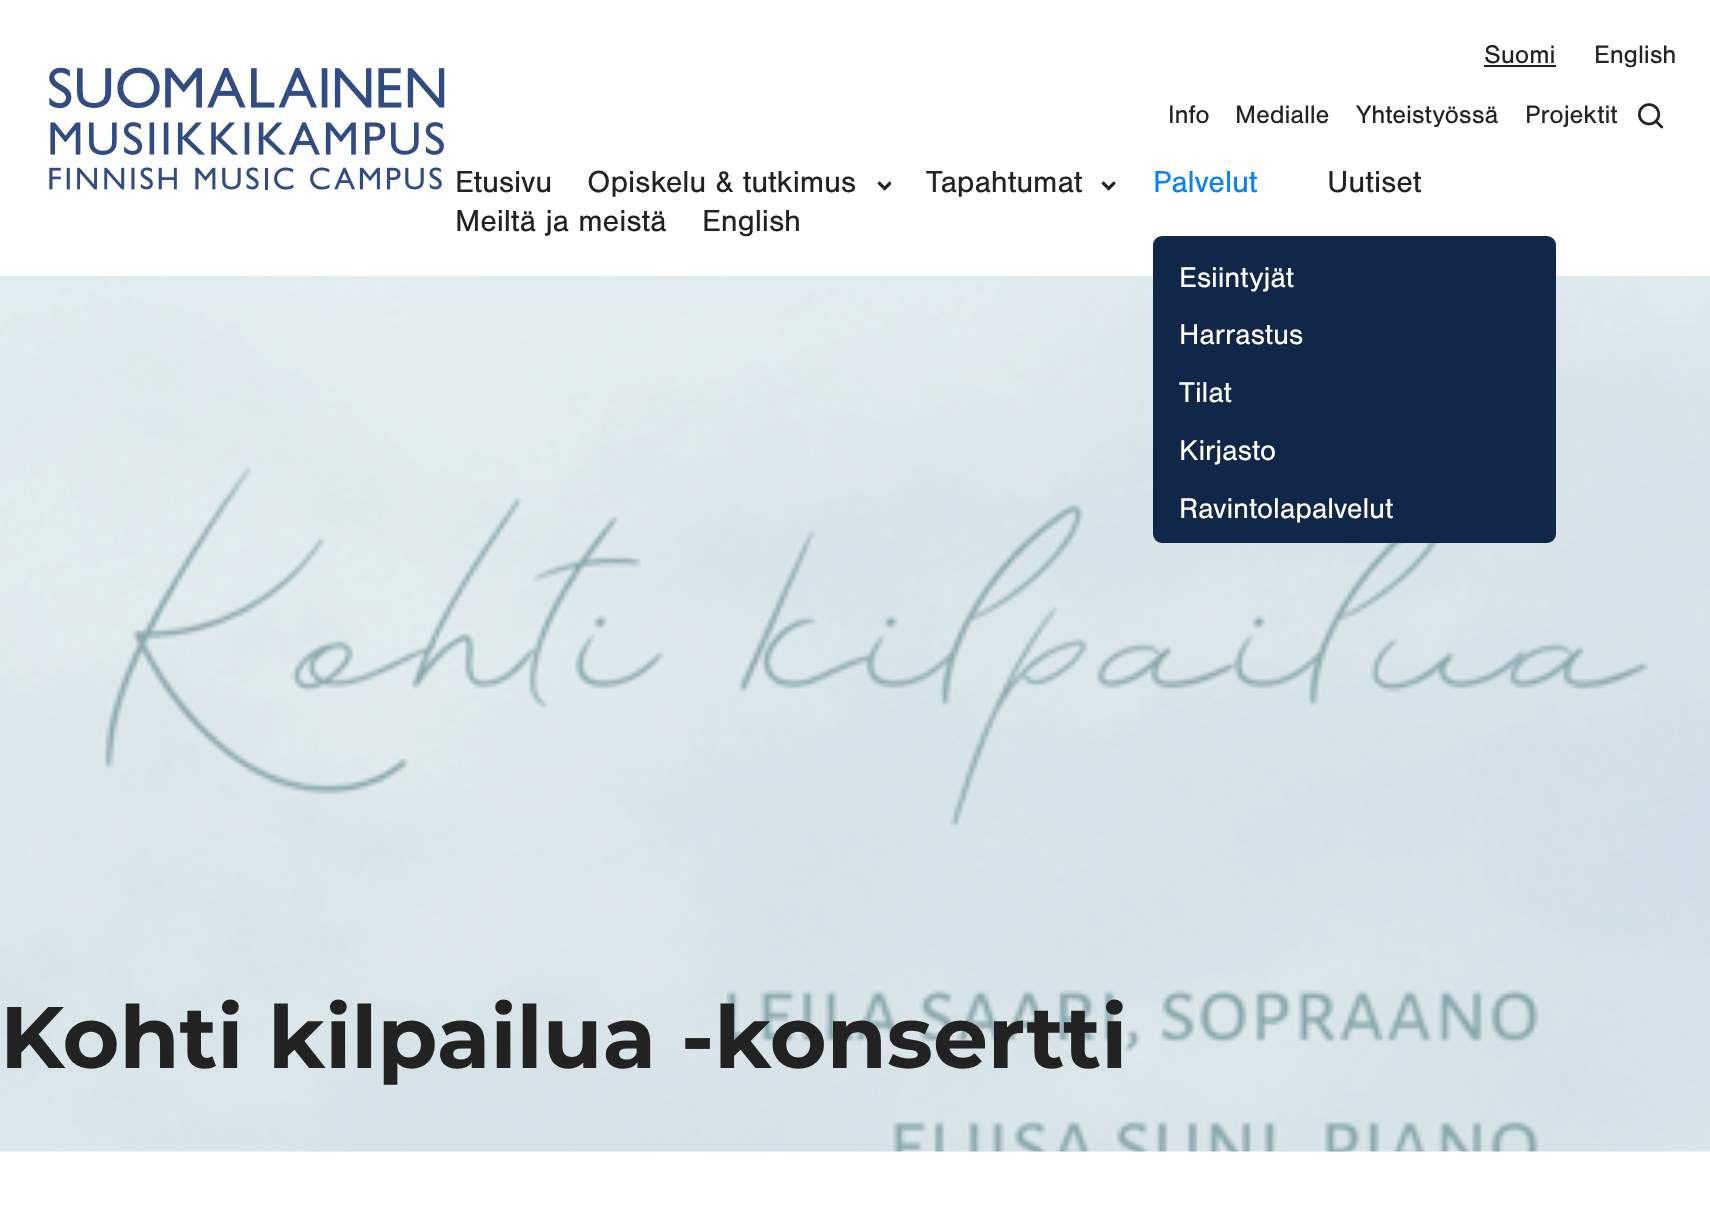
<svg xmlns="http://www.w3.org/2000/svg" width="1710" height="1226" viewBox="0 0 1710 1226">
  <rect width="100%" height="100%" fill="rgb(255,255,255)"/>
  <image x="49" y="67" width="396" height="123" href="pic1.png"/>
  <text x="1484" y="63" font-family="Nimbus" font-size="26.25" letter-spacing="-0.1" fill="rgb(34,34,34)">Suomi</text>
  <rect x="1484" y="65" width="72" height="2" fill="rgb(34,34,34)"/>
  <g font-family="Nimbus" font-size="26.25" letter-spacing="-0.1" fill="rgb(34,34,34)">
    <text x="1594" y="63">English</text>
    <text x="1168" y="123">Info</text>
    <text x="1235" y="123">Medialle</text>
    <text x="1356" y="123">Yhteistyössä</text>
    <text x="1525" y="123">Projektit</text>
  </g>
  <image x="1638" y="103" width="26" height="26" href="pic2.png"/>
  <g font-family="Nimbus" font-size="31.5" letter-spacing="-0.1" fill="rgb(34,34,34)">
    <text x="455" y="192">Etusivu</text>
    <text x="587" y="192">Opiskelu &amp; tutkimus</text>
  </g>
  <image x="877" y="181" width="14" height="10" href="pic3.png"/>
  <text x="926" y="192" font-family="Nimbus" font-size="31.5" letter-spacing="-0.1" fill="rgb(34,34,34)">Tapahtumat</text>
  <image x="1101" y="181" width="15" height="10" href="pic4.png"/>
  <text x="1153" y="192" font-family="Nimbus" font-size="31.5" letter-spacing="-0.1" fill="rgb(5,128,255)">Palvelut</text>
  <image x="0" y="276" width="1710" height="876" href="pic5.png"/>
  <rect x="1153" y="236" width="403" height="307" rx="9" fill="rgb(16,39,73)"/>
  <g font-family="Nimbus" font-size="29.75" letter-spacing="-0.1" fill="rgb(255,255,255)">
    <text>
      <tspan x="1179" y="287">Esiintyjät</tspan>
      <tspan x="1179" y="344">Harrastus</tspan>
      <tspan x="1179" y="402">Tilat</tspan>
      <tspan x="1179" y="460">Kirjasto</tspan>
      <tspan x="1179" y="518">Ravintolapalvelut</tspan>
    </text>
  </g>
  <g font-family="Nimbus" font-size="31.5" letter-spacing="-0.1" fill="rgb(34,34,34)">
    <text x="1327" y="192">Uutiset</text>
    <text x="455" y="231">Meiltä ja meistä</text>
    <text x="702" y="231">English</text>
  </g>
  <text x="0" y="1068" font-family="Montserrat" font-size="87" font-weight="bold" fill="rgb(34,34,34)">Kohti kilpailua -konsertti</text>
</svg>
